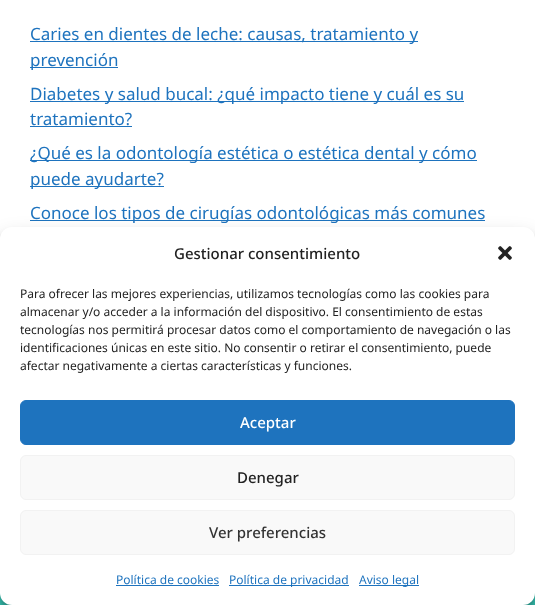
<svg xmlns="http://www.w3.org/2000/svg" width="535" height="605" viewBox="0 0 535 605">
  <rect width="100%" height="100%" fill="rgb(255,255,255)"/>
  <rect x="30" y="41" width="388" height="1" fill="rgb(30,115,190)"/>
  <text x="30" y="40" font-family="Noto Sans" font-size="17" fill="rgb(30,115,190)">Caries en dientes de leche: causas, tratamiento y</text>
  <rect x="30" y="67" width="88" height="1" fill="rgb(30,115,190)"/>
  <text x="30" y="66" font-family="Noto Sans" font-size="17" fill="rgb(30,115,190)">prevención</text>
  <rect x="30" y="101" width="434" height="1" fill="rgb(30,115,190)"/>
  <g font-family="Noto Sans" font-size="17" fill="rgb(30,115,190)">
    <text>
      <tspan x="30" y="100">Diabetes y salud bucal: ¿qué impacto tiene y cuál es su</tspan>
      <tspan x="30" y="125">tratamiento?</tspan>
    </text>
  </g>
  <rect x="30" y="126" width="102" height="1" fill="rgb(30,115,190)"/>
  <rect x="30" y="160" width="447" height="1" fill="rgb(30,115,190)"/>
  <text x="30" y="159" font-family="Noto Sans" font-size="17" fill="rgb(30,115,190)">¿Qué es la odontología estética o estética dental y cómo</text>
  <rect x="30" y="186" width="134" height="1" fill="rgb(30,115,190)"/>
  <text x="30" y="185" font-family="Noto Sans" font-size="17" fill="rgb(30,115,190)">puede ayudarte?</text>
  <rect x="30" y="220" width="455" height="1" fill="rgb(30,115,190)"/>
  <text x="30" y="219" font-family="Noto Sans" font-size="17" fill="rgb(30,115,190)">Conoce los tipos de cirugías odontológicas más comunes</text>
  <rect x="0" y="593" width="535" height="12" fill="rgb(58,204,187)"/>
  <rect x="0" y="233" width="535" height="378" rx="12" fill="rgba(0,0,0,0.23)" filter="blur(3px)"/>
  <rect x="0" y="237" width="535" height="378" rx="12" fill="rgba(0,0,0,0.19)" filter="blur(10px)"/>
  <rect x="0" y="227" width="535" height="378" rx="12" fill="rgb(255,255,255)"/>
  <text x="174" y="259" font-family="Noto Sans" font-size="15" font-weight="500" fill="rgb(34,34,34)">Gestionar consentimiento</text>
  <image x="498" y="246" width="14" height="14" href="pic1.png"/>
  <g font-family="Noto Sans" font-size="12" fill="rgb(34,34,34)">
    <text>
      <tspan x="20" y="298">Para ofrecer las mejores experiencias, utilizamos tecnologías como las cookies para</tspan>
      <tspan x="20" y="316">almacenar y/o acceder a la información del dispositivo. El consentimiento de estas</tspan>
      <tspan x="20" y="334">tecnologías nos permitirá procesar datos como el comportamiento de navegación o las</tspan>
      <tspan x="20" y="352">identificaciones únicas en este sitio. No consentir o retirar el consentimiento, puede</tspan>
      <tspan x="20" y="370">afectar negativamente a ciertas características y funciones.</tspan>
    </text>
  </g>
  <rect x="20.5" y="400.5" width="494" height="44" rx="5.5" fill="rgb(30,115,190)" stroke="rgb(30,115,190)"/>
  <text x="240" y="428" font-family="Noto Sans" font-size="15" font-weight="500" fill="rgb(255,255,255)">Aceptar</text>
  <rect x="20.5" y="455.5" width="494" height="44" rx="5.5" fill="rgb(249,249,249)" stroke="rgb(242,242,242)"/>
  <text x="237" y="483" font-family="Noto Sans" font-size="15" font-weight="500" fill="rgb(34,34,34)">Denegar</text>
  <rect x="20.5" y="510.5" width="494" height="44" rx="5.5" fill="rgb(249,249,249)" stroke="rgb(242,242,242)"/>
  <text x="209" y="538" font-family="Noto Sans" font-size="15" font-weight="500" fill="rgb(51,51,51)">Ver preferencias</text>
  <text x="116" y="584" font-family="Noto Sans" font-size="12" fill="rgb(30,115,190)">Política de cookies</text>
  <rect x="116" y="585" width="103" height="1" fill="rgb(30,115,190)"/>
  <rect x="229" y="585" width="120" height="1" fill="rgb(30,115,190)"/>
  <text x="229" y="584" font-family="Noto Sans" font-size="12" fill="rgb(30,115,190)">Política de privacidad</text>
  <rect x="359" y="585" width="60" height="1" fill="rgb(30,115,190)"/>
  <text x="359" y="584" font-family="Noto Sans" font-size="12" fill="rgb(30,115,190)">Aviso legal</text>
</svg>
